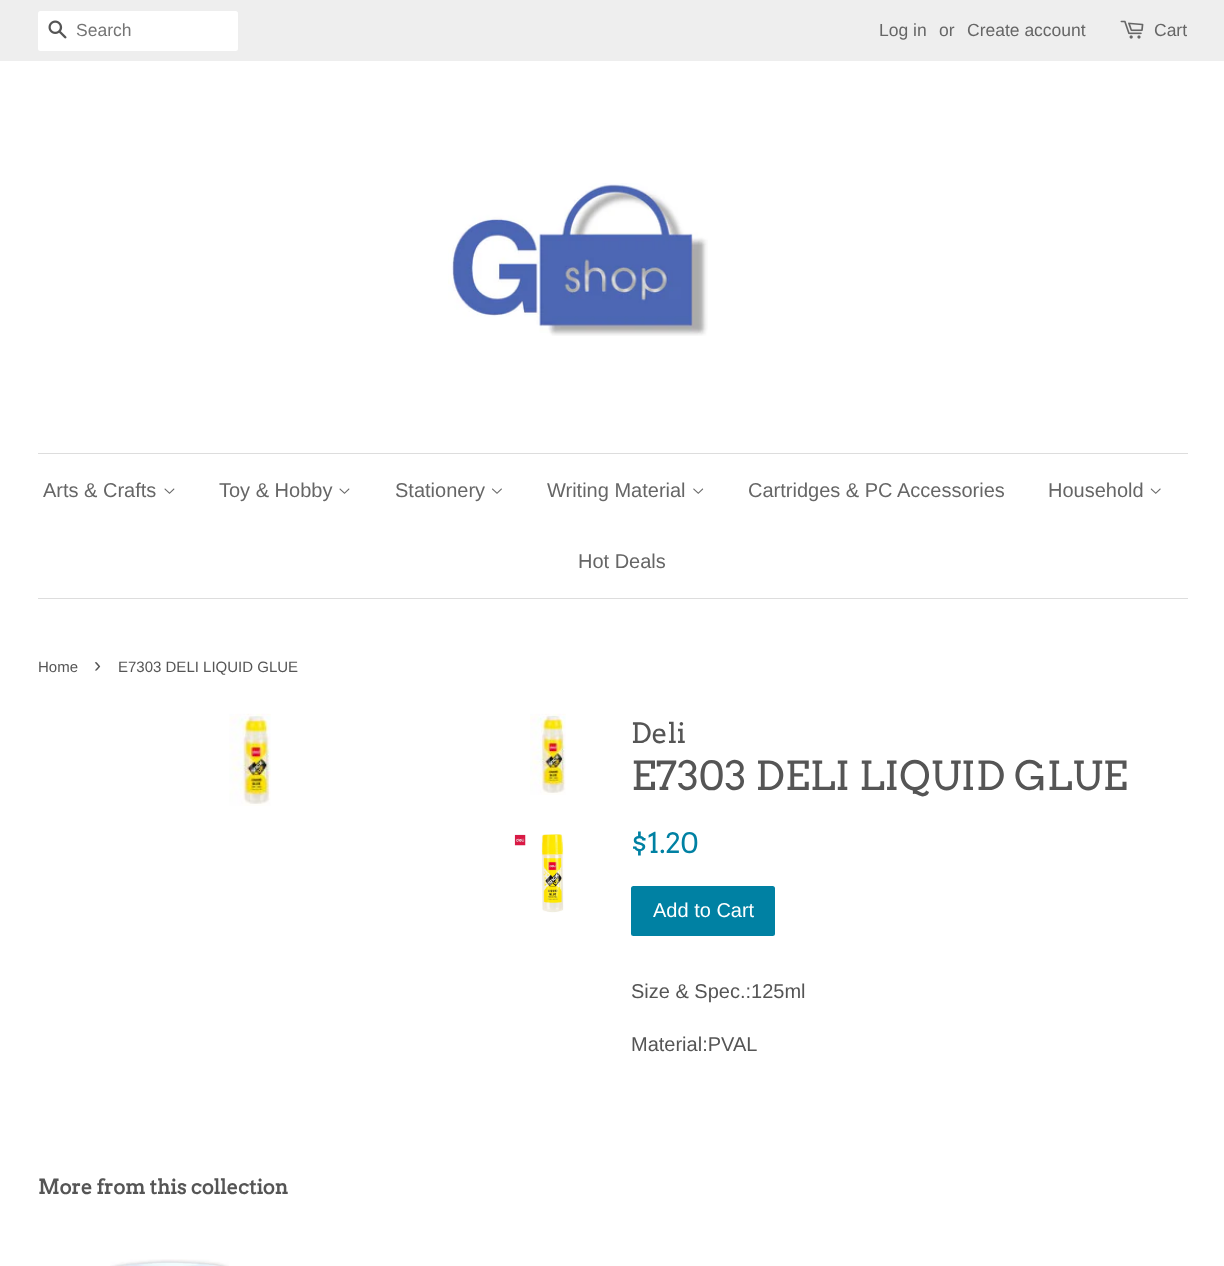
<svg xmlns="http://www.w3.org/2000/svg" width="1224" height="1266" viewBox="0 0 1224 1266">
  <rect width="100%" height="100%" fill="rgb(255,255,255)"/>
  <rect x="0" y="0" width="1224" height="61" fill="rgb(238,238,238)"/>
  <rect x="38" y="11" width="200" height="40" rx="2.5" fill="rgb(255,255,255)"/>
  <image x="48" y="20" width="19" height="19" href="pic1.png"/>
  <text x="76" y="36" font-family="Liberation Sans" font-size="17.5" fill="rgb(117,117,117)">Search</text>
  <g font-family="Liberation Sans" font-size="17.5" fill="rgb(102,102,102)">
    <text x="879" y="36">Log in</text>
    <text x="939" y="36">or</text>
    <text x="967" y="36">Create account</text>
  </g>
  <image x="1120" y="20" width="24" height="19" href="pic2.png"/>
  <text x="1154" y="36" font-family="Liberation Sans" font-size="17.5" fill="rgb(102,102,102)">Cart</text>
  <image x="448" y="183" width="260" height="153" href="pic3.png"/>
  <rect x="38" y="453" width="1150" height="1" fill="rgb(221,221,221)"/>
  <rect x="38" y="598" width="1150" height="1" fill="rgb(221,221,221)"/>
  <text x="43" y="497" font-family="Liberation Sans" font-size="20" fill="rgb(102,102,102)">Arts &amp; Crafts</text>
  <image x="164" y="488" width="11" height="6" href="pic4.png"/>
  <text x="219" y="497" font-family="Liberation Sans" font-size="20" fill="rgb(102,102,102)">Toy &amp; Hobby</text>
  <image x="339" y="488" width="11" height="6" href="pic4.png"/>
  <text x="395" y="497" font-family="Liberation Sans" font-size="20" fill="rgb(102,102,102)">Stationery</text>
  <image x="492" y="488" width="10" height="6" href="pic5.png"/>
  <text x="547" y="497" font-family="Liberation Sans" font-size="20" fill="rgb(102,102,102)">Writing Material</text>
  <image x="693" y="488" width="11" height="6" href="pic6.png"/>
  <g font-family="Liberation Sans" font-size="20" fill="rgb(102,102,102)">
    <text x="748" y="497">Cartridges &amp; PC Accessories</text>
    <text x="1048" y="497">Household</text>
  </g>
  <image x="1150" y="488" width="11" height="6" href="pic7.png"/>
  <text x="578" y="568" font-family="Liberation Sans" font-size="20" fill="rgb(102,102,102)">Hot Deals</text>
  <text x="38" y="672" font-family="Liberation Sans" font-size="15" fill="rgb(85,85,85)">Home</text>
  <text x="94" y="672" font-family="Liberation Sans" font-size="21" fill="rgb(85,85,85)">›</text>
  <text x="118" y="672" font-family="Liberation Sans" font-size="15" fill="rgb(85,85,85)">E7303 DELI LIQUID GLUE</text>
  <image x="229" y="713" width="42" height="93" href="pic8.png"/>
  <image x="530" y="713" width="36" height="82" href="pic9.png"/>
  <image x="514" y="834" width="50" height="79" href="pic10.png"/>
  <text x="631" y="743" font-family="Arvo" font-size="28" fill="rgb(85,85,85)">Deli</text>
  <text x="631" y="790" font-family="Arvo" font-size="40" fill="rgb(85,85,85)">E7303 DELI LIQUID GLUE</text>
  <text x="631" y="853" font-family="Arvo" font-size="28" fill="rgb(0,129,163)">$1.20</text>
  <rect x="631" y="886" width="144" height="50" rx="2.5" fill="rgb(0,129,163)"/>
  <text x="653" y="917" font-family="Liberation Sans" font-size="20" fill="rgb(255,255,255)">Add to Cart</text>
  <g font-family="Liberation Sans" font-size="20" fill="rgb(85,85,85)">
    <text x="631" y="998">Size &amp; Spec.:125ml</text>
    <text x="631" y="1051">Material:PVAL</text>
  </g>
  <text x="38" y="1194" font-family="Arvo" font-size="20" font-weight="bold" fill="rgb(85,85,85)">More from this collection</text>
  <image x="110" y="1259" width="119" height="7" href="pic11.png"/>
</svg>
